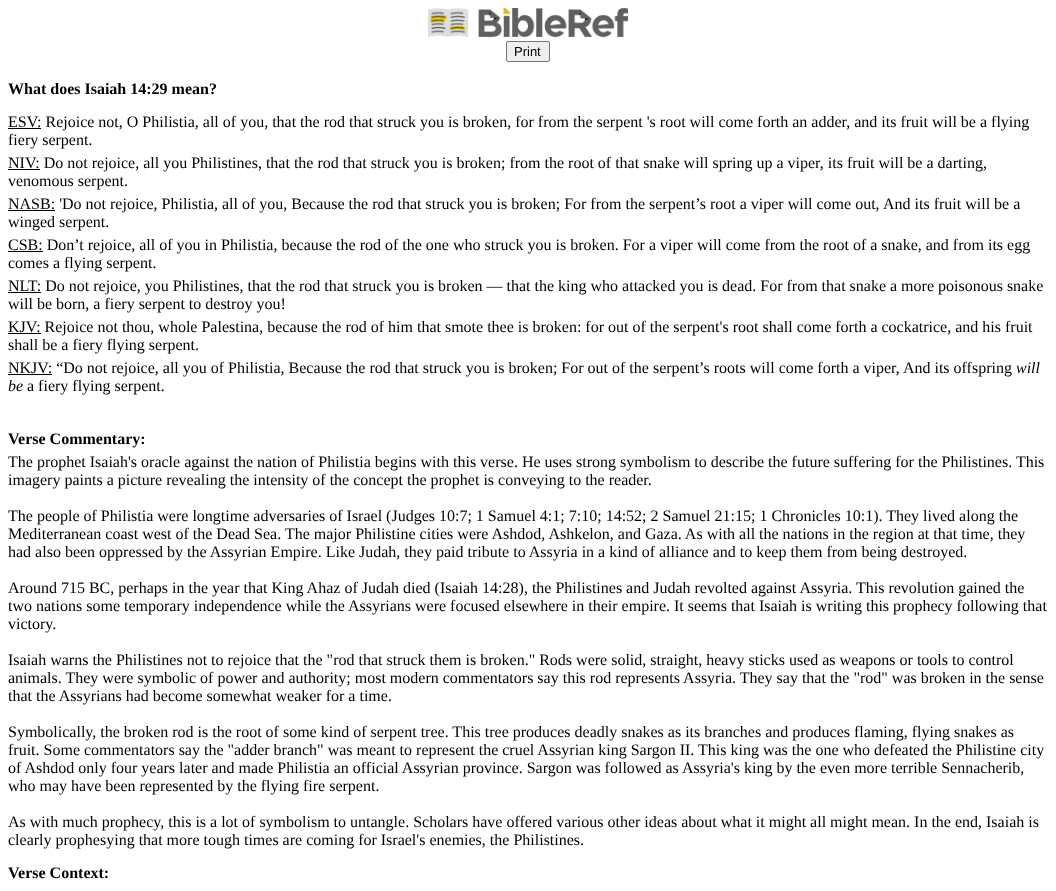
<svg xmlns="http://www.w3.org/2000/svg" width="1056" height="891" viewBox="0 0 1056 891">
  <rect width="100%" height="100%" fill="rgb(255,255,255)"/>
  <image x="428" y="8" width="200" height="29" href="pic1.png"/>
  <rect x="506.5" y="41.5" width="43" height="20" rx="1.5" fill="rgb(239,239,239)" stroke="rgb(118,118,118)"/>
  <text x="514" y="56" font-family="Liberation Sans" font-size="13" fill="rgb(0,0,0)">Print</text>
  <text x="8" y="94" font-family="Liberation Serif" font-size="16" font-weight="bold" fill="rgb(0,0,0)">What does Isaiah 14:29 mean?</text>
  <rect x="8" y="128" width="33" height="1" fill="rgb(0,0,0)"/>
  <g font-family="Liberation Serif" font-size="16" fill="rgb(0,0,0)">
    <text>
      <tspan x="8" y="127">ESV: Rejoice not, O Philistia, all of you, that the rod that struck you is broken, for from the serpent 's root will come forth an adder, and its fruit will be a flying</tspan>
      <tspan x="8" y="145">fiery serpent.</tspan>
    </text>
  </g>
  <rect x="8" y="169" width="32" height="1" fill="rgb(0,0,0)"/>
  <g font-family="Liberation Serif" font-size="16" fill="rgb(0,0,0)">
    <text>
      <tspan x="8" y="168">NIV: Do not rejoice, all you Philistines, that the rod that struck you is broken; from the root of that snake will spring up a viper, its fruit will be a darting,</tspan>
      <tspan x="8" y="186">venomous serpent.</tspan>
    </text>
  </g>
  <rect x="8" y="210" width="47" height="1" fill="rgb(0,0,0)"/>
  <g font-family="Liberation Serif" font-size="16" fill="rgb(0,0,0)">
    <text x="8" y="209">NASB: 'Do not rejoice, Philistia, all of you, Because the rod that struck you is broken; For from the serpent’s root a viper will come out,</text>
    <text x="883" y="209">And its fruit will be a</text>
    <text x="8" y="227">winged serpent.</text>
  </g>
  <rect x="8" y="251" width="35" height="1" fill="rgb(0,0,0)"/>
  <g font-family="Liberation Serif" font-size="16" fill="rgb(0,0,0)">
    <text>
      <tspan x="8" y="250">CSB: Don’t rejoice, all of you in Philistia, because the rod of the one who struck you is broken. For a viper will come from the root of a snake, and from its egg</tspan>
      <tspan x="8" y="268">comes a flying serpent.</tspan>
    </text>
  </g>
  <rect x="8" y="292" width="33" height="1" fill="rgb(0,0,0)"/>
  <g font-family="Liberation Serif" font-size="16" fill="rgb(0,0,0)">
    <text>
      <tspan x="8" y="291">NLT: Do not rejoice, you Philistines, that the rod that struck you is broken — that the king who attacked you is dead. For from that snake a more poisonous snake</tspan>
      <tspan x="8" y="309">will be born, a fiery serpent to destroy you!</tspan>
    </text>
  </g>
  <rect x="8" y="333" width="33" height="1" fill="rgb(0,0,0)"/>
  <g font-family="Liberation Serif" font-size="16" fill="rgb(0,0,0)">
    <text>
      <tspan x="8" y="332">KJV: Rejoice not thou, whole Palestina, because the rod of him that smote thee is broken: for out of the serpent's root shall come forth a cockatrice, and his fruit</tspan>
      <tspan x="8" y="350">shall be a fiery flying serpent.</tspan>
    </text>
  </g>
  <rect x="8" y="374" width="44" height="1" fill="rgb(0,0,0)"/>
  <text x="8" y="373" font-family="Liberation Serif" font-size="16" fill="rgb(0,0,0)">NKJV: “Do not rejoice, all you of Philistia, Because the rod that struck you is broken; For out of the serpent’s roots will come forth a viper, And its offspring</text>
  <g font-family="Liberation Serif" font-size="16" font-style="italic" fill="rgb(0,0,0)">
    <text x="1016" y="373">will</text>
    <text x="8" y="391">be</text>
  </g>
  <text x="27" y="391" font-family="Liberation Serif" font-size="16" fill="rgb(0,0,0)">a fiery flying serpent.</text>
  <text x="8" y="444" font-family="Liberation Serif" font-size="16" font-weight="bold" fill="rgb(0,0,0)">Verse Commentary:</text>
  <g font-family="Liberation Serif" font-size="16" fill="rgb(0,0,0)">
    <text>
      <tspan x="8" y="467">The prophet Isaiah's oracle against the nation of Philistia begins with this verse. He uses strong symbolism to describe the future suffering for the Philistines. This</tspan>
      <tspan x="8" y="485">imagery paints a picture revealing the intensity of the concept the prophet is conveying to the reader.</tspan>
    </text>
    <text>
      <tspan x="8" y="521">The people of Philistia were longtime adversaries of Israel (Judges 10:7; 1 Samuel 4:1; 7:10; 14:52; 2 Samuel 21:15; 1 Chronicles 10:1). They lived along the</tspan>
      <tspan x="8" y="539">Mediterranean coast west of the Dead Sea. The major Philistine cities were Ashdod, Ashkelon, and Gaza. As with all the nations in the region at that time, they</tspan>
      <tspan x="8" y="557">had also been oppressed by the Assyrian Empire. Like Judah, they paid tribute to Assyria in a kind of alliance and to keep them from being destroyed.</tspan>
    </text>
    <text>
      <tspan x="8" y="593">Around 715 BC, perhaps in the year that King Ahaz of Judah died (Isaiah 14:28), the Philistines and Judah revolted against Assyria. This revolution gained the</tspan>
      <tspan x="8" y="611">two nations some temporary independence while the Assyrians were focused elsewhere in their empire. It seems that Isaiah is writing this prophecy following that</tspan>
      <tspan x="8" y="629">victory.</tspan>
    </text>
    <text>
      <tspan x="8" y="665">Isaiah warns the Philistines not to rejoice that the "rod that struck them is broken." Rods were solid, straight, heavy sticks used as weapons or tools to control</tspan>
      <tspan x="8" y="683">animals. They were symbolic of power and authority; most modern commentators say this rod represents Assyria. They say that the "rod" was broken in the sense</tspan>
      <tspan x="8" y="701">that the Assyrians had become somewhat weaker for a time.</tspan>
    </text>
    <text>
      <tspan x="8" y="737">Symbolically, the broken rod is the root of some kind of serpent tree. This tree produces deadly snakes as its branches and produces flaming, flying snakes as</tspan>
      <tspan x="8" y="755">fruit. Some commentators say the "adder branch" was meant to represent the cruel Assyrian king Sargon II. This king was the one who defeated the Philistine city</tspan>
      <tspan x="8" y="773">of Ashdod only four years later and made Philistia an official Assyrian province. Sargon was followed as Assyria's king by the even more terrible Sennacherib,</tspan>
      <tspan x="8" y="791">who may have been represented by the flying fire serpent.</tspan>
    </text>
    <text>
      <tspan x="8" y="827">As with much prophecy, this is a lot of symbolism to untangle. Scholars have offered various other ideas about what it might all might mean. In the end, Isaiah is</tspan>
      <tspan x="8" y="845">clearly prophesying that more tough times are coming for Israel's enemies, the Philistines.</tspan>
    </text>
  </g>
  <text x="8" y="878" font-family="Liberation Serif" font-size="16" font-weight="bold" fill="rgb(0,0,0)">Verse Context:</text>
</svg>
